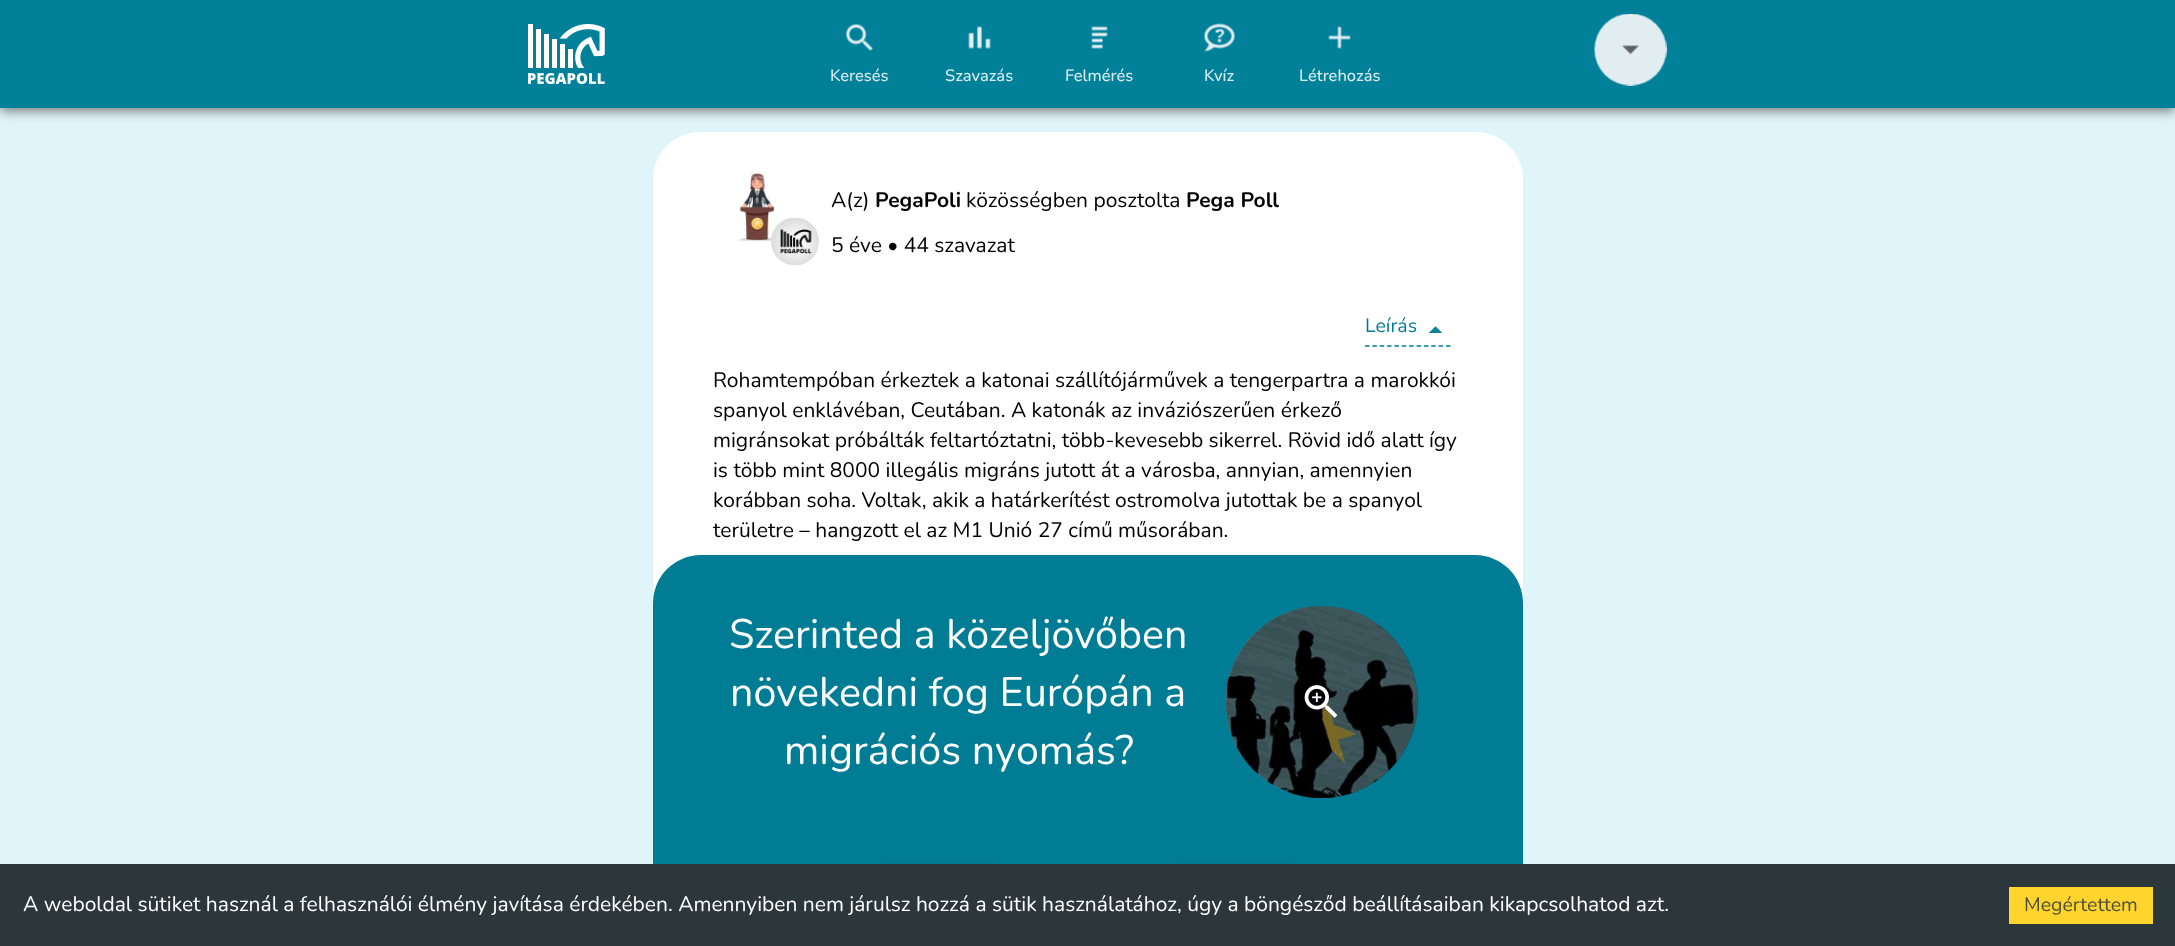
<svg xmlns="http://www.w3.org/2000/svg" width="2175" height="946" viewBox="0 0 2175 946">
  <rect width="100%" height="100%" fill="rgb(223,245,250)"/>
  <rect x="0" y="3" width="2175" height="108" fill="rgb(119,119,119)" filter="blur(6px)"/>
  <rect x="0" y="0" width="2175" height="108" fill="rgb(0,128,153)"/>
  <image x="528" y="24" width="77" height="60" href="pic1.png"/>
  <image x="845" y="24" width="28" height="27" href="pic2.png"/>
  <text x="830" y="81" font-family="Nunito" font-size="16.5" font-weight="500" fill="rgb(217,236,240)">Keresés</text>
  <image x="968" y="26" width="23" height="23" href="pic3.png"/>
  <text x="945" y="81" font-family="Nunito" font-size="16.5" font-weight="500" fill="rgb(217,236,240)">Szavazás</text>
  <image x="1091" y="26" width="17" height="23" href="pic4.png"/>
  <text x="1065" y="81" font-family="Nunito" font-size="16.5" font-weight="500" fill="rgb(217,236,240)">Felmérés</text>
  <image x="1204" y="23" width="31" height="29" href="pic5.png"/>
  <text x="1204" y="81" font-family="Nunito" font-size="16.5" font-weight="500" fill="rgb(217,236,240)">Kvíz</text>
  <image x="1328" y="26" width="23" height="23" href="pic6.png"/>
  <text x="1299" y="81" font-family="Nunito" font-size="16.5" font-weight="500" fill="rgb(217,236,240)">Létrehozás</text>
  <image x="1594" y="14" width="73" height="72" href="pic7.png"/>
  <rect x="653" y="132" width="870" height="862" rx="48" fill="rgb(255,255,255)"/>
  <rect x="653" y="132" width="870" height="423" rx="48" fill="rgb(255,255,255)"/>
  <image x="738" y="168" width="39" height="74" href="pic8.png"/>
  <image x="771" y="217" width="48" height="49" href="pic9.png"/>
  <text x="831" y="207" font-family="Nunito" font-size="21" fill="rgb(0,0,0)">A(z)</text>
  <text x="875" y="207" font-family="Nunito" font-size="21" font-weight="bold" fill="rgb(0,0,0)">PegaPoli</text>
  <text x="966" y="207" font-family="Nunito" font-size="21" fill="rgb(0,0,0)">közösségben posztolta</text>
  <text x="1186" y="207" font-family="Nunito" font-size="21" font-weight="bold" fill="rgb(0,0,0)">Pega Poll</text>
  <text x="831" y="252" font-family="Nunito" font-size="21" fill="rgb(0,0,0)">5 éve • 44 szavazat</text>
  <path d="M1365 346H1450.5" fill="none" stroke="rgb(0,124,149)" stroke-width="1.5" stroke-dasharray="4.5 2.86"/>
  <text x="1365" y="332" font-family="Nunito" font-size="19.5" fill="rgb(0,124,149)">Leírás</text>
  <image x="1428" y="326" width="15" height="7" href="pic10.png"/>
  <g font-family="Nunito" font-size="21" fill="rgb(0,0,0)">
    <text>
      <tspan x="713" y="387">Rohamtempóban érkeztek a katonai szállítójárművek a tengerpartra a marokkói</tspan>
      <tspan x="713" y="417">spanyol enklávéban, Ceutában. A katonák az inváziószerűen érkező</tspan>
      <tspan x="713" y="447">migránsokat próbálták feltartóztatni, több-kevesebb sikerrel. Rövid idő alatt így</tspan>
      <tspan x="713" y="477">is több mint 8000 illegális migráns jutott át a városba, annyian, amennyien</tspan>
      <tspan x="713" y="507">korábban soha. Voltak, akik a határkerítést ostromolva jutottak be a spanyol</tspan>
      <tspan x="713" y="537">területre – hangzott el az M1 Unió 27 című műsorában.</tspan>
    </text>
  </g>
  <rect x="653" y="555" width="870" height="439" rx="48" fill="rgb(0,124,149)"/>
  <g font-family="Nunito" font-size="41.25" fill="rgb(255,255,255)">
    <text x="729" y="648">Szerinted a közeljövőben</text>
    <text x="730" y="706">növekedni fog Európán a</text>
    <text x="784" y="764">migrációs nyomás?</text>
  </g>
  <image x="1225" y="606" width="193" height="192" href="pic11.png"/>
  <circle cx="1322" cy="702" r="96" fill="rgba(0,0,0,0.3)"/>
  <image x="1304" y="685" width="34" height="33" href="pic12.png"/>
  <rect x="881" y="866" width="115" height="63" rx="12" fill="rgba(0,0,0,0.12)" filter="blur(4px)"/>
  <rect x="1176" y="866" width="119" height="63" rx="12" fill="rgba(0,0,0,0.12)" filter="blur(4px)"/>
  <rect x="0" y="864" width="2175" height="82" fill="rgb(43,55,59)"/>
  <text x="23" y="911" font-family="Nunito" font-size="21" fill="rgb(255,255,255)">A weboldal sütiket használ a felhasználói élmény javítása érdekében. Amennyiben nem járulsz hozzá a sütik használatához, úgy a böngésződ beállításaiban kikapcsolhatod azt.</text>
  <rect x="2009" y="887" width="144" height="37" fill="rgb(255,212,45)"/>
  <text x="2024" y="911" font-family="Nunito" font-size="19.5" fill="rgb(78,80,59)">Megértettem</text>
</svg>
